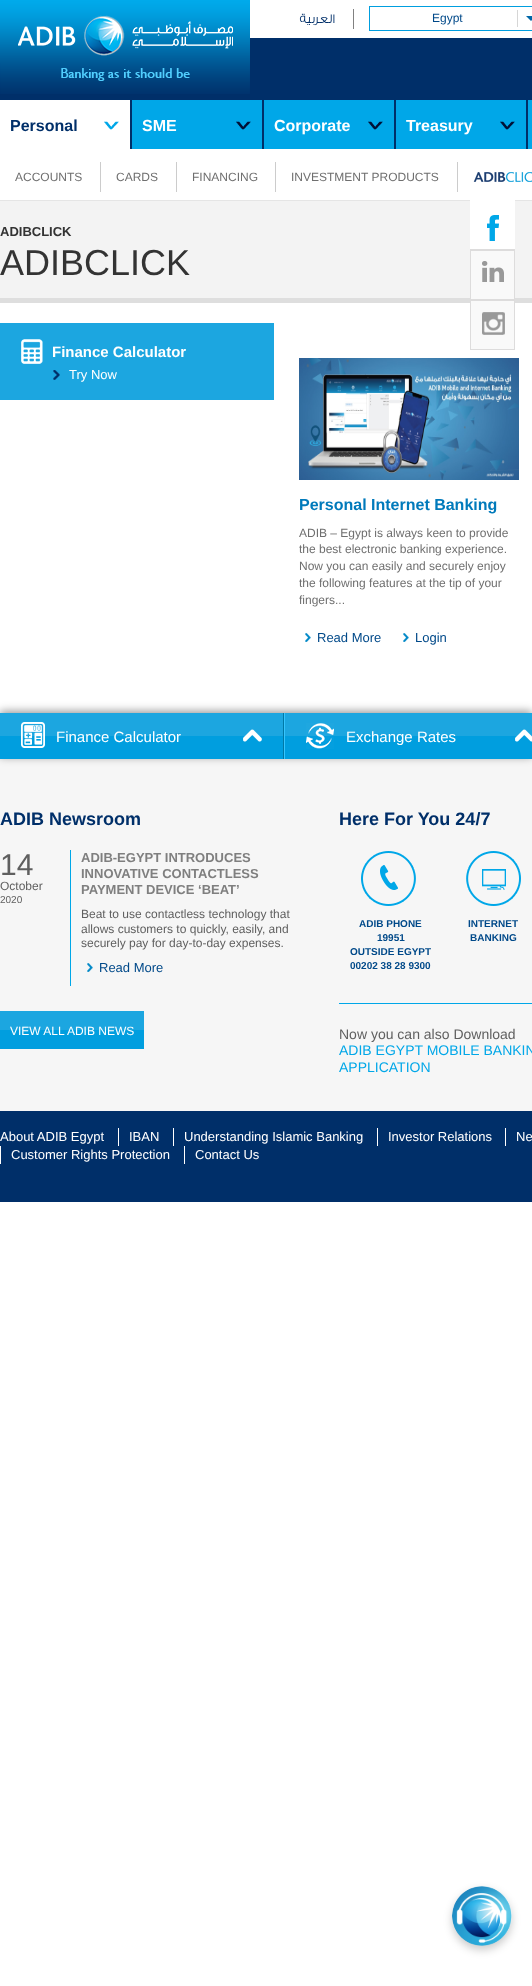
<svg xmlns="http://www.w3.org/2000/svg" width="532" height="1986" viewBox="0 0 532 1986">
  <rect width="100%" height="100%" fill="rgb(255,255,255)"/>
  <rect x="0" y="38" width="532" height="111" fill="rgb(0,47,105)"/>
  <image x="0" y="0" width="250" height="94" href="pic1.png"/>
  <text x="335" y="23" font-family="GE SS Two" font-size="13" font-weight="300" direction="rtl" fill="rgb(0,47,105)">العربية</text>
  <rect x="353" y="9" width="1" height="20" fill="rgb(129,129,129)"/>
  <rect x="369.5" y="6.5" width="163" height="24" fill="none" stroke="rgb(0,158,223)"/>
  <text x="432" y="22" font-family="Liberation Sans" font-size="12" fill="rgb(0,73,137)">Egypt</text>
  <image x="517" y="10" width="15" height="17" href="pic2.png"/>
  <rect x="0" y="100" width="130" height="49" fill="rgb(255,255,255)"/>
  <text x="10" y="131" font-family="Liberation Sans" font-size="16" font-weight="bold" fill="rgb(0,47,105)">Personal</text>
  <image x="104" y="121" width="15" height="9" href="pic3.png"/>
  <rect x="0" y="200" width="532" height="1" fill="rgb(229,229,229)"/>
  <text x="15" y="181" font-family="Liberation Sans" font-size="12" fill="rgb(111,111,111)">ACCOUNTS</text>
  <rect x="100" y="162" width="1" height="30" fill="rgb(204,204,204)"/>
  <text x="116" y="181" font-family="Liberation Sans" font-size="12" fill="rgb(111,111,111)">CARDS</text>
  <rect x="176" y="162" width="1" height="30" fill="rgb(204,204,204)"/>
  <text x="192" y="181" font-family="Liberation Sans" font-size="12" fill="rgb(111,111,111)">FINANCING</text>
  <rect x="275" y="162" width="1" height="30" fill="rgb(204,204,204)"/>
  <text x="291" y="181" font-family="Liberation Sans" font-size="12" fill="rgb(111,111,111)">INVESTMENT PRODUCTS</text>
  <rect x="457" y="162" width="1" height="30" fill="rgb(204,204,204)"/>
  <image x="473" y="172" width="59" height="10" href="pic4.png"/>
  <rect x="528" y="100" width="4" height="49" fill="rgb(0,167,232)"/>
  <rect x="132" y="100" width="130" height="49" fill="rgb(0,167,232)"/>
  <text x="142" y="131" font-family="Liberation Sans" font-size="16" font-weight="bold" fill="rgb(255,255,255)">SME</text>
  <image x="236" y="121" width="15" height="9" href="pic5.png"/>
  <rect x="264" y="100" width="130" height="49" fill="rgb(0,167,232)"/>
  <text x="274" y="131" font-family="Liberation Sans" font-size="16" font-weight="bold" fill="rgb(255,255,255)">Corporate</text>
  <image x="368" y="121" width="15" height="9" href="pic5.png"/>
  <rect x="396" y="100" width="130" height="49" fill="rgb(0,167,232)"/>
  <text x="406" y="131" font-family="Liberation Sans" font-size="16" font-weight="bold" fill="rgb(255,255,255)">Treasury</text>
  <image x="500" y="121" width="15" height="9" href="pic5.png"/>
  <rect x="0" y="201" width="532" height="97" fill="rgb(243,243,243)"/>
  <rect x="0" y="298" width="532" height="5" fill="rgb(222,222,222)"/>
  <text x="0" y="236" font-family="Liberation Sans" font-size="13" font-weight="bold" fill="rgb(51,51,51)">ADIBCLICK</text>
  <text x="0" y="275" font-family="Liberation Sans" font-size="36" fill="rgb(51,51,51)">ADIBCLICK</text>
  <rect x="470" y="200" width="45" height="49" fill="rgb(255,255,255)"/>
  <image x="487" y="215" width="12" height="26" href="pic6.png"/>
  <rect x="470" y="249" width="45" height="1" fill="rgb(221,220,220)"/>
  <rect x="471" y="251" width="43" height="48" fill="rgb(249,249,249)"/>
  <image x="482" y="261" width="22" height="21" href="pic7.png"/>
  <rect x="470.5" y="250.5" width="44" height="49" fill="none" stroke="rgb(221,220,220)"/>
  <rect x="471" y="301" width="43" height="48" fill="rgb(249,249,249)"/>
  <image x="482" y="312" width="23" height="23" href="pic8.png"/>
  <rect x="470.5" y="300.5" width="44" height="49" fill="none" stroke="rgb(221,220,220)"/>
  <rect x="0" y="323" width="274" height="77" fill="rgb(28,166,224)"/>
  <image x="21" y="339" width="22" height="25" href="pic9.png"/>
  <text x="52" y="357" font-family="Liberation Sans" font-size="15" font-weight="bold" fill="rgb(255,255,255)">Finance Calculator</text>
  <image x="53" y="370" width="7" height="10" href="pic10.png"/>
  <text x="69" y="379" font-family="Liberation Sans" font-size="13" fill="rgb(255,255,255)">Try Now</text>
  <image x="299" y="358" width="220" height="122" href="pic11.png"/>
  <text x="299" y="510" font-family="Liberation Sans" font-size="16" font-weight="bold" fill="rgb(0,122,187)">Personal Internet Banking</text>
  <g font-family="Liberation Sans" font-size="12" fill="rgb(111,111,111)">
    <text>
      <tspan x="299" y="537">ADIB – Egypt is always keen to provide</tspan>
      <tspan x="299" y="553">the best electronic banking experience.</tspan>
      <tspan x="299" y="570">Now you can easily and securely enjoy</tspan>
      <tspan x="299" y="587">the following features at the tip of your</tspan>
      <tspan x="299" y="604">fingers...</tspan>
    </text>
  </g>
  <image x="305" y="633" width="6" height="9" href="pic12.png"/>
  <text x="317" y="642" font-family="Liberation Sans" font-size="13" fill="rgb(0,73,137)">Read More</text>
  <image x="403" y="633" width="6" height="9" href="pic12.png"/>
  <text x="415" y="642" font-family="Liberation Sans" font-size="13" fill="rgb(0,73,137)">Login</text>
  <rect x="0" y="759" width="532" height="352" fill="rgb(246,246,246)"/>
  <rect x="0" y="711" width="532" height="46" fill="rgba(0,0,0,0.4)" filter="blur(4px)"/>
  <rect x="0" y="713" width="532" height="23" fill="rgb(28,166,224)"/>
  <rect x="0" y="736" width="532" height="23" fill="rgb(0,158,223)"/>
  <rect x="283" y="713" width="1" height="46" fill="rgb(0,120,166)"/>
  <image x="21" y="722" width="24" height="26" href="pic13.png"/>
  <text x="56" y="742" font-family="Liberation Sans" font-size="15" fill="rgb(255,255,255)">Finance Calculator</text>
  <image x="243" y="729" width="19" height="13" href="pic14.png"/>
  <rect x="284" y="713" width="1" height="46" fill="rgb(53,198,255)"/>
  <image x="306" y="723" width="28" height="26" href="pic15.png"/>
  <text x="346" y="742" font-family="Liberation Sans" font-size="15" fill="rgb(255,255,255)">Exchange Rates</text>
  <image x="515" y="729" width="17" height="13" href="pic16.png"/>
  <text x="0" y="825" font-family="Liberation Sans" font-size="18" font-weight="bold" fill="rgb(0,47,105)">ADIB Newsroom</text>
  <text x="0" y="875" font-family="Liberation Sans" font-size="30" fill="rgb(95,95,95)">14</text>
  <text x="0" y="890" font-family="Liberation Sans" font-size="12" fill="rgb(95,95,95)">October</text>
  <text x="0" y="903" font-family="Liberation Sans" font-size="10" fill="rgb(95,95,95)">2020</text>
  <rect x="70" y="850" width="1" height="136" fill="rgb(0,167,232)"/>
  <g font-family="Liberation Sans" font-size="13" font-weight="bold" fill="rgb(127,127,127)">
    <text>
      <tspan x="81" y="862">ADIB-EGYPT INTRODUCES</tspan>
      <tspan x="81" y="878">INNOVATIVE CONTACTLESS</tspan>
      <tspan x="81" y="894">PAYMENT DEVICE ‘BEAT’</tspan>
    </text>
  </g>
  <g font-family="Liberation Sans" font-size="12" fill="rgb(95,95,95)">
    <text>
      <tspan x="81" y="918">Beat to use contactless technology that</tspan>
      <tspan x="81" y="933">allows customers to quickly, easily, and</tspan>
      <tspan x="81" y="947">securely pay for day-to-day expenses.</tspan>
    </text>
  </g>
  <image x="87" y="963" width="6" height="9" href="pic17.png"/>
  <text x="99" y="972" font-family="Liberation Sans" font-size="13" fill="rgb(0,73,137)">Read More</text>
  <rect x="0" y="1011" width="144" height="19" fill="rgb(28,166,224)"/>
  <rect x="0" y="1030" width="144" height="19" fill="rgb(0,158,223)"/>
  <text x="10" y="1035" font-family="Liberation Sans" font-size="12" fill="rgb(255,255,255)">VIEW ALL ADIB NEWS</text>
  <text x="339" y="825" font-family="Liberation Sans" font-size="18" font-weight="bold" fill="rgb(0,47,105)">Here For You 24/7</text>
  <image x="361" y="851" width="55" height="55" href="pic18.png"/>
  <g font-family="Liberation Sans" font-size="10" font-weight="bold" fill="rgb(0,73,137)">
    <text x="359" y="927">ADIB PHONE</text>
    <text x="377" y="941">19951</text>
    <text>
      <tspan x="350" y="955">OUTSIDE EGYPT</tspan>
      <tspan x="350" y="969">00202 38 28 9300</tspan>
    </text>
  </g>
  <image x="466" y="851" width="55" height="55" href="pic19.png"/>
  <g font-family="Liberation Sans" font-size="10" font-weight="bold" fill="rgb(0,73,137)">
    <text x="468" y="927">INTERNET</text>
    <text x="470" y="941">BANKING</text>
  </g>
  <rect x="339" y="1003" width="193" height="1" fill="rgb(0,167,232)"/>
  <text x="339" y="1039" font-family="Liberation Sans" font-size="14" fill="rgb(95,95,95)">Now you can also Download</text>
  <g font-family="Liberation Sans" font-size="14" fill="rgb(0,167,232)">
    <text>
      <tspan x="339" y="1055">ADIB EGYPT MOBILE BANKIN</tspan>
      <tspan x="339" y="1072">APPLICATION</tspan>
    </text>
  </g>
  <rect x="0" y="1111" width="532" height="91" fill="rgb(0,47,105)"/>
  <text x="0" y="1141" font-family="Liberation Sans" font-size="13" fill="rgb(255,255,255)">About ADIB Egypt</text>
  <rect x="118" y="1128" width="1" height="18" fill="rgb(255,255,255)"/>
  <text x="129" y="1141" font-family="Liberation Sans" font-size="13" fill="rgb(255,255,255)">IBAN</text>
  <rect x="173" y="1128" width="1" height="18" fill="rgb(255,255,255)"/>
  <text x="184" y="1141" font-family="Liberation Sans" font-size="13" fill="rgb(255,255,255)">Understanding Islamic Banking</text>
  <rect x="377" y="1128" width="1" height="18" fill="rgb(255,255,255)"/>
  <text x="388" y="1141" font-family="Liberation Sans" font-size="13" fill="rgb(255,255,255)">Investor Relations</text>
  <rect x="505" y="1128" width="1" height="18" fill="rgb(255,255,255)"/>
  <text x="516" y="1141" font-family="Liberation Sans" font-size="13" fill="rgb(255,255,255)">Ne</text>
  <rect x="0" y="1146" width="1" height="18" fill="rgb(255,255,255)"/>
  <text x="11" y="1159" font-family="Liberation Sans" font-size="13" fill="rgb(255,255,255)">Customer Rights Protection</text>
  <rect x="184" y="1146" width="1" height="18" fill="rgb(255,255,255)"/>
  <text x="195" y="1159" font-family="Liberation Sans" font-size="13" fill="rgb(255,255,255)">Contact Us</text>
  <rect x="452" y="1890" width="60" height="60" rx="30" fill="rgba(0,0,0,0.2)" filter="blur(4px)"/>
  <image x="452" y="1886" width="60" height="60" href="pic20.png"/>
</svg>
